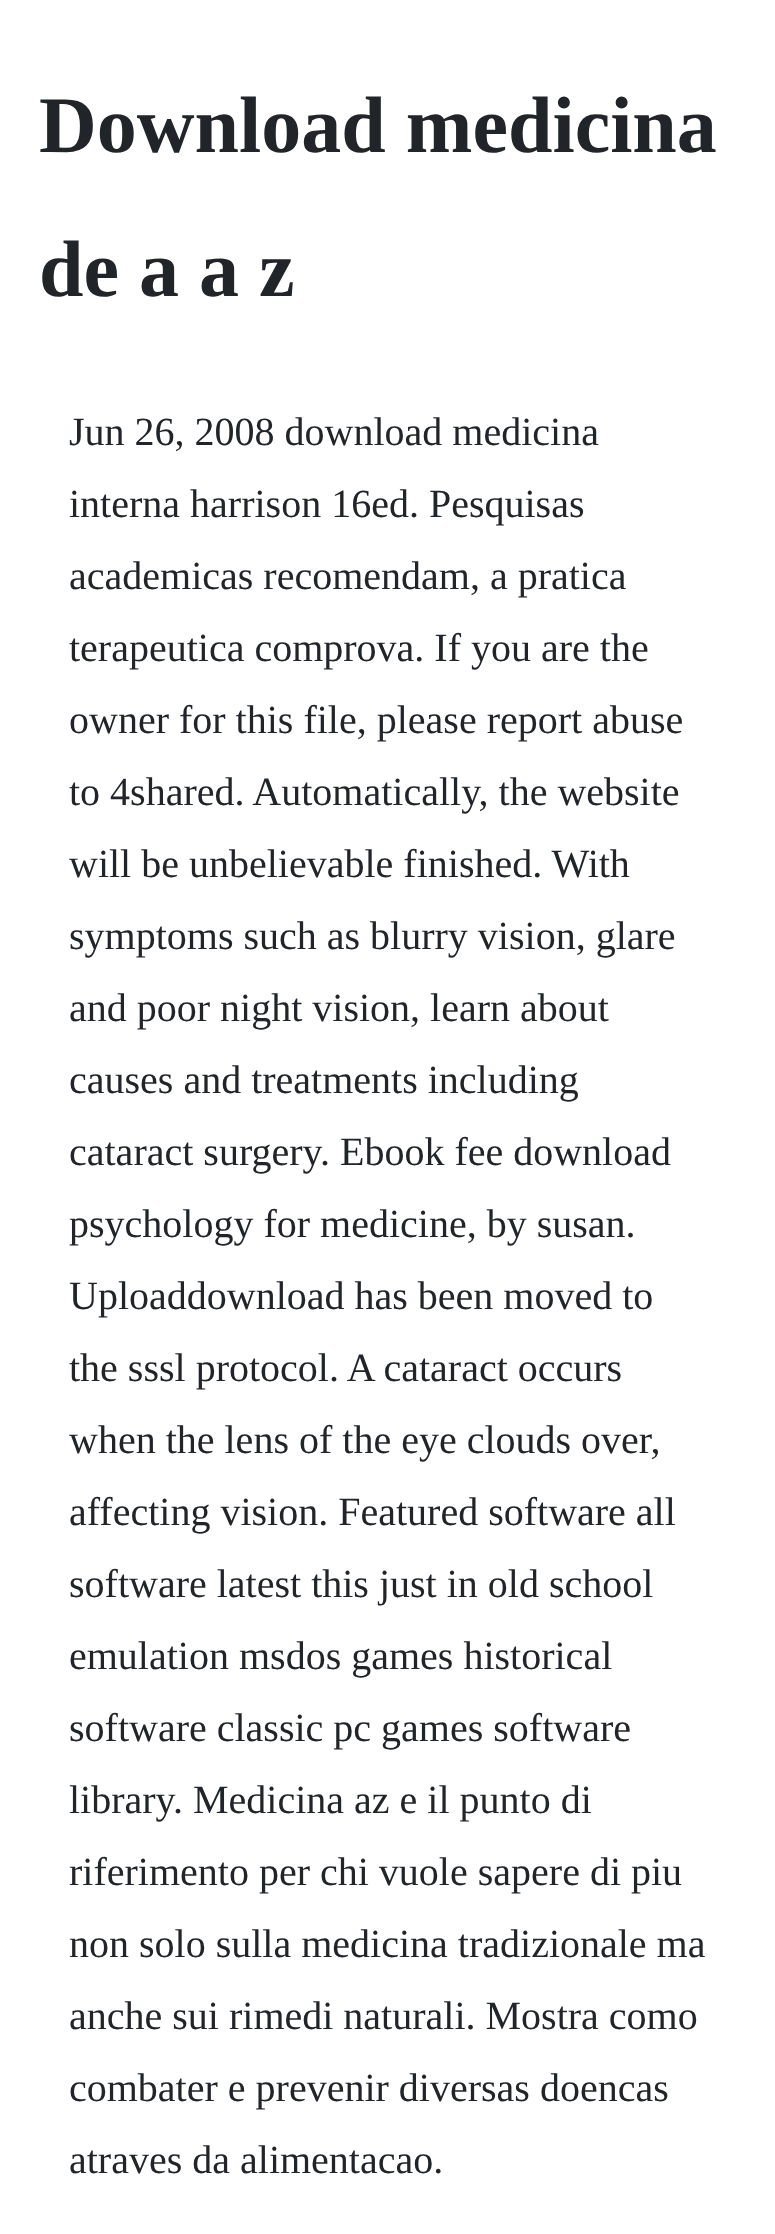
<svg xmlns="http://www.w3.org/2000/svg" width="775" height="2234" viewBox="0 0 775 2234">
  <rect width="100%" height="100%" fill="rgb(255,255,255)"/>
  <g font-family="Liberation Serif" font-size="80" font-weight="bold" fill="rgb(33,37,41)">
    <text>
      <tspan x="39" y="152">Download medicina</tspan>
      <tspan x="39" y="296">de a a z</tspan>
    </text>
  </g>
  <g font-family="Liberation Serif" font-size="40" fill="rgb(33,37,41)">
    <text>
      <tspan x="69" y="445">Jun 26, 2008 download medicina</tspan>
      <tspan x="69" y="517">interna harrison 16ed. Pesquisas</tspan>
      <tspan x="69" y="589">academicas recomendam, a pratica</tspan>
      <tspan x="69" y="661">terapeutica comprova. If you are the</tspan>
      <tspan x="69" y="733">owner for this file, please report abuse</tspan>
      <tspan x="69" y="805">to 4shared. Automatically, the website</tspan>
      <tspan x="69" y="877">will be unbelievable finished. With</tspan>
      <tspan x="69" y="949">symptoms such as blurry vision, glare</tspan>
      <tspan x="69" y="1021">and poor night vision, learn about</tspan>
      <tspan x="69" y="1093">causes and treatments including</tspan>
      <tspan x="69" y="1165">cataract surgery. Ebook fee download</tspan>
      <tspan x="69" y="1237">psychology for medicine, by susan.</tspan>
      <tspan x="69" y="1309">Uploaddownload has been moved to</tspan>
      <tspan x="69" y="1381">the sssl protocol. A cataract occurs</tspan>
      <tspan x="69" y="1453">when the lens of the eye clouds over,</tspan>
      <tspan x="69" y="1525">affecting vision. Featured software all</tspan>
      <tspan x="69" y="1597">software latest this just in old school</tspan>
      <tspan x="69" y="1669">emulation msdos games historical</tspan>
      <tspan x="69" y="1741">software classic pc games software</tspan>
      <tspan x="69" y="1813">library. Medicina az e il punto di</tspan>
      <tspan x="69" y="1885">riferimento per chi vuole sapere di piu</tspan>
      <tspan x="69" y="1957">non solo sulla medicina tradizionale ma</tspan>
      <tspan x="69" y="2029">anche sui rimedi naturali. Mostra como</tspan>
      <tspan x="69" y="2101">combater e prevenir diversas doencas</tspan>
      <tspan x="69" y="2173">atraves da alimentacao.</tspan>
    </text>
  </g>
</svg>
